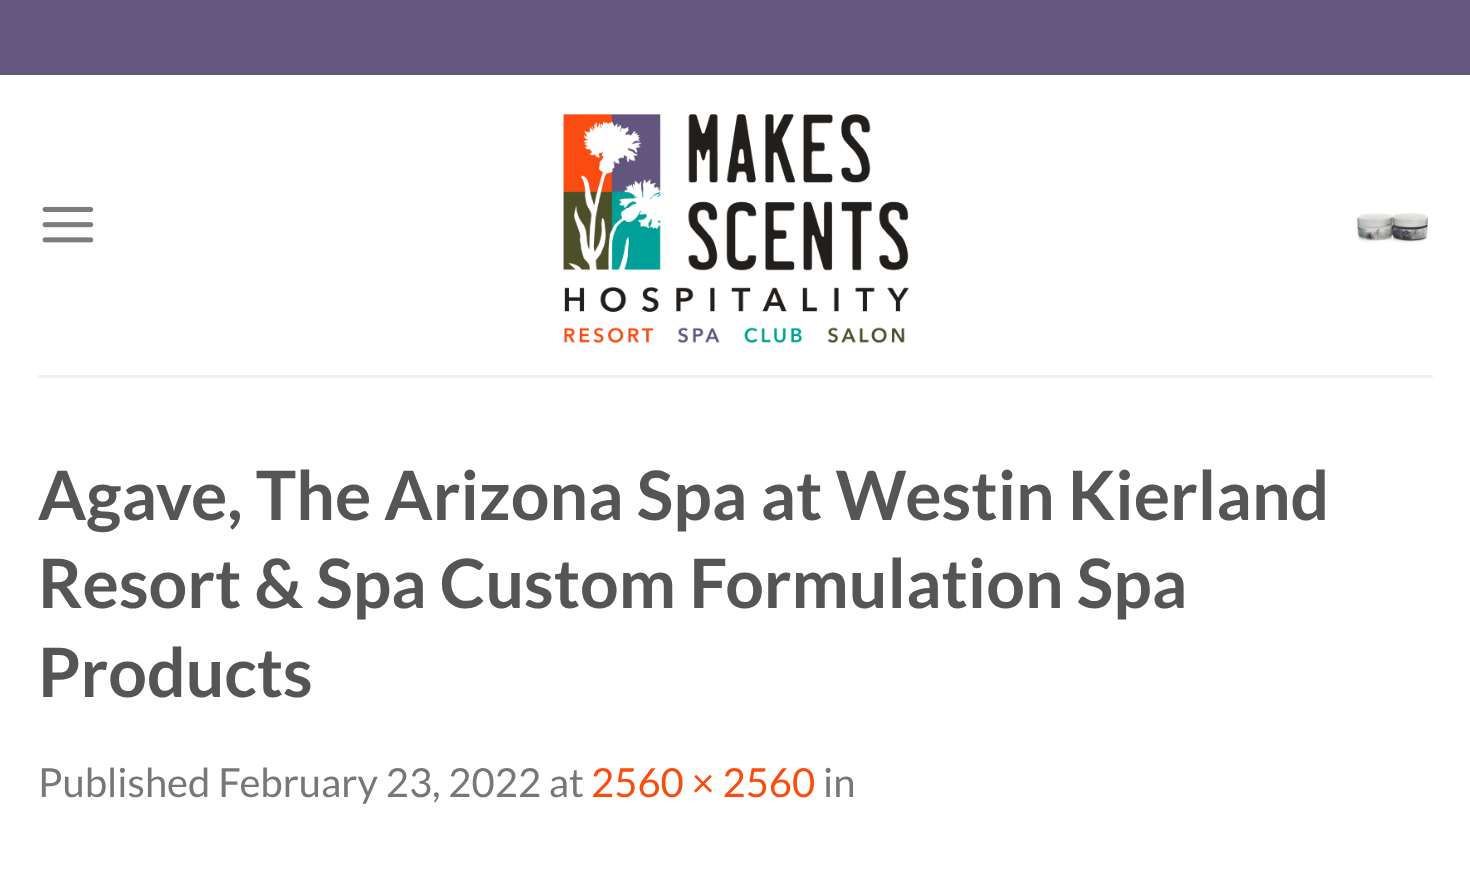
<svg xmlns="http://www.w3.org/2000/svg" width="1470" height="889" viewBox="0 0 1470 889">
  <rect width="100%" height="100%" fill="rgb(255,255,255)"/>
  <rect x="0" y="0" width="1470" height="75" fill="rgb(99,86,127)"/>
  <image x="42" y="206" width="52" height="37" href="pic1.png"/>
  <image x="563" y="114" width="347" height="229" href="pic2.png"/>
  <image x="1357" y="213" width="71" height="31" href="pic3.png"/>
  <rect x="38" y="375" width="1395" height="3" fill="rgb(241,241,241)"/>
  <g font-family="Lato" font-size="68" font-weight="bold" fill="rgb(85,85,85)">
    <text>
      <tspan x="38" y="520">Agave, The Arizona Spa at Westin Kierland</tspan>
      <tspan x="38" y="608">Resort &amp; Spa Custom Formulation Spa</tspan>
      <tspan x="38" y="697">Products</tspan>
    </text>
  </g>
  <text x="38" y="797" font-family="Lato" font-size="40" fill="rgb(119,119,119)">Published February 23, 2022 at</text>
  <text x="591" y="797" font-family="Lato" font-size="40" fill="rgb(251,76,16)">2560 × 2560</text>
  <text x="823" y="797" font-family="Lato" font-size="40" fill="rgb(119,119,119)">in</text>
</svg>
